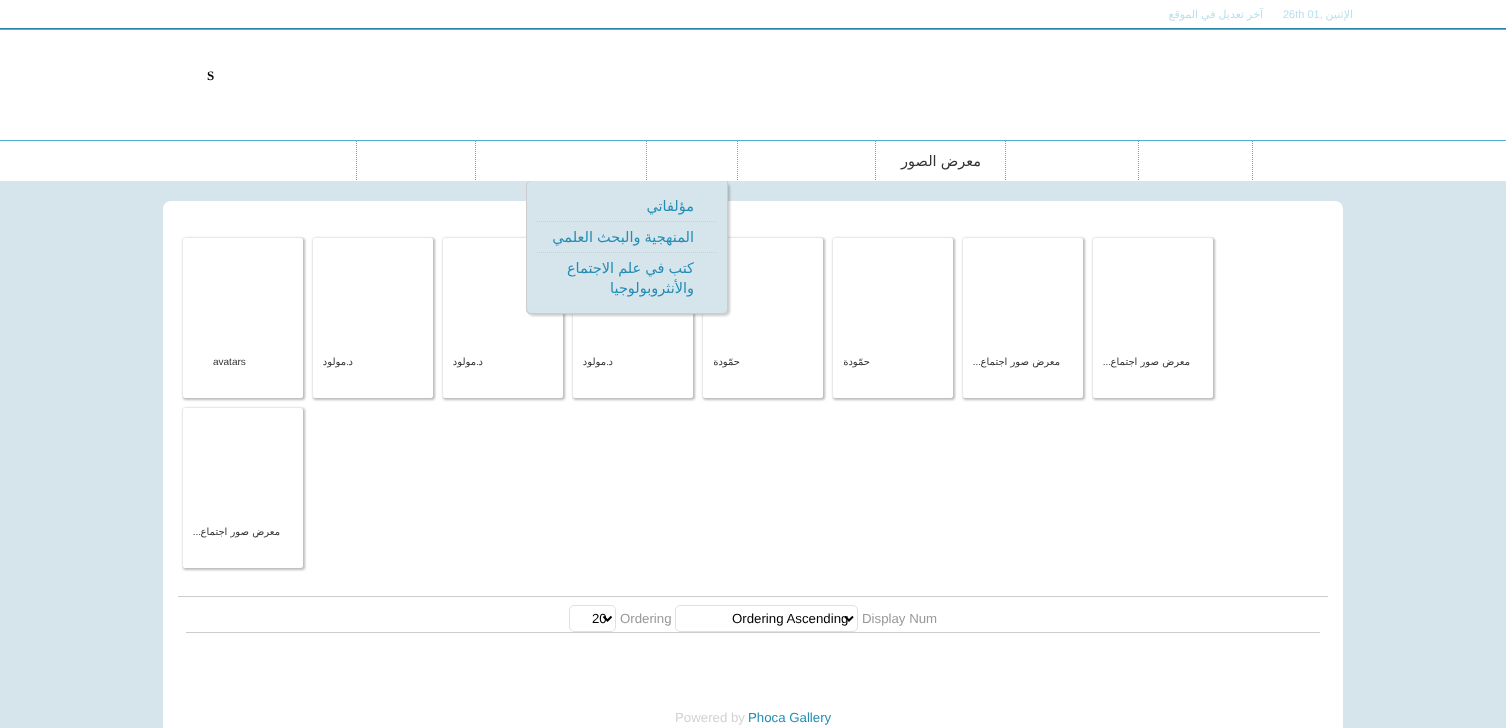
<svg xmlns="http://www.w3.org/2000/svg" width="1506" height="728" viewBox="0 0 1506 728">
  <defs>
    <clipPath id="clip1"><path d="M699 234H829V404H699ZM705 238H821C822 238 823 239 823 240V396C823 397 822 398 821 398H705C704 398 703 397 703 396V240C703 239 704 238 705 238Z" clip-rule="evenodd"/></clipPath>
    <clipPath id="clip2"><path d="M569 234H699V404H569ZM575 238H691C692 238 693 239 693 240V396C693 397 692 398 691 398H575C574 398 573 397 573 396V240C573 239 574 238 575 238Z" clip-rule="evenodd"/></clipPath>
    <clipPath id="clip3"><path d="M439 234H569V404H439ZM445 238H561C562 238 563 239 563 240V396C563 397 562 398 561 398H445C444 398 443 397 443 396V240C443 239 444 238 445 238Z" clip-rule="evenodd"/></clipPath>
    <clipPath id="clip4"><path d="M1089 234H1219V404H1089ZM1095 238H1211C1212 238 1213 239 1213 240V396C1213 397 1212 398 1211 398H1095C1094 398 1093 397 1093 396V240C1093 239 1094 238 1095 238Z" clip-rule="evenodd"/></clipPath>
    <clipPath id="clip5"><path d="M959 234H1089V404H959ZM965 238H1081C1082 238 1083 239 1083 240V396C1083 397 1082 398 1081 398H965C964 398 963 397 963 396V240C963 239 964 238 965 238Z" clip-rule="evenodd"/></clipPath>
    <clipPath id="clip6"><path d="M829 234H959V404H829ZM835 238H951C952 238 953 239 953 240V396C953 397 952 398 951 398H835C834 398 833 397 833 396V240C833 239 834 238 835 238Z" clip-rule="evenodd"/></clipPath>
    <clipPath id="clip7"><path d="M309 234H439V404H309ZM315 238H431C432 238 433 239 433 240V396C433 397 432 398 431 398H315C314 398 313 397 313 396V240C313 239 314 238 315 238Z" clip-rule="evenodd"/></clipPath>
    <clipPath id="clip8"><path d="M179 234H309V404H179ZM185 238H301C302 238 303 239 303 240V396C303 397 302 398 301 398H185C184 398 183 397 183 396V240C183 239 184 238 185 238Z" clip-rule="evenodd"/></clipPath>
    <clipPath id="clip9"><path d="M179 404H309V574H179ZM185 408H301C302 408 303 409 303 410V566C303 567 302 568 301 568H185C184 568 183 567 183 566V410C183 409 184 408 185 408Z" clip-rule="evenodd"/></clipPath>
  </defs>
  <rect width="100%" height="100%" fill="rgb(255,255,255)"/>
  <rect x="0" y="28" width="1506" height="1" fill="rgb(41,133,168)"/>
  <text x="1353" y="18" font-family="DejaVu Sans" font-size="11" direction="rtl" fill="rgb(186,225,239)">الإثنين</text>
  <text x="1283" y="18" font-family="Liberation Sans" font-size="11" fill="rgb(186,225,239)">26th 01,</text>
  <text x="1263" y="18" word-spacing="-0.5" font-family="DejaVu Sans" font-size="11" direction="rtl" fill="rgb(186,225,239)">آخر تعديل في الموقع</text>
  <rect x="0" y="29" width="1506" height="1" fill="rgb(79,174,210)"/>
  <text x="207" y="80" font-family="Liberation Serif" font-size="13" font-weight="bold" fill="rgb(0,0,0)">S</text>
  <rect x="0" y="140" width="1506" height="1" fill="rgb(79,174,210)"/>
  <path d="M1252.5 141V181" fill="none" stroke="rgb(107,168,191)" stroke-dasharray="1 1"/>
  <path d="M1138.5 141V181" fill="none" stroke="rgb(107,168,191)" stroke-dasharray="1 1"/>
  <path d="M1005.5 141V181" fill="none" stroke="rgb(107,168,191)" stroke-dasharray="1 1"/>
  <text x="981" y="166" word-spacing="-0.5" font-family="DejaVu Sans" font-size="14.5" direction="rtl" fill="rgb(51,51,51)">معرض الصور</text>
  <path d="M875.5 141V181" fill="none" stroke="rgb(107,168,191)" stroke-dasharray="1 1"/>
  <path d="M646.5 141V181" fill="none" stroke="rgb(107,168,191)" stroke-dasharray="1 1"/>
  <path d="M475.5 141V181" fill="none" stroke="rgb(107,168,191)" stroke-dasharray="1 1"/>
  <path d="M356.5 141V181" fill="none" stroke="rgb(107,168,191)" stroke-dasharray="1 1"/>
  <path d="M737.5 141V181" fill="none" stroke="rgb(107,168,191)" stroke-dasharray="1 1"/>
  <rect x="0" y="181" width="1506" height="547" fill="rgb(214,228,236)"/>
  <rect x="163" y="201" width="1180" height="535" rx="8" fill="rgb(255,255,255)"/>
  <rect x="528" y="183" width="202" height="133" rx="5" fill="rgba(0,0,0,0.2)" filter="blur(1px)"/>
  <g clip-path="url(#clip1)">
    <rect x="703" y="238" width="122" height="162" rx="3" fill="rgba(120,120,120,0.5)" filter="blur(1px)"/>
  </g>
  <g clip-path="url(#clip2)">
    <rect x="573" y="238" width="122" height="162" rx="3" fill="rgba(120,120,120,0.5)" filter="blur(1px)"/>
  </g>
  <g clip-path="url(#clip3)">
    <rect x="443" y="238" width="122" height="162" rx="3" fill="rgba(120,120,120,0.5)" filter="blur(1px)"/>
  </g>
  <path d="M531 181H728V309C728 312 726 314 723 314H531C528 314 526 312 526 309V186C526 183 528 181 531 181Z" fill="rgb(214,228,236)"/>
  <path d="M531 181H728V309C728 312 726 314 723 314H531C528 314 526 312 526 309V186C526 183 528 181 531 181ZM531 181H727V309C727 311 725 313 723 313H531C529 313 527 311 527 309V186C527 183 529 181 531 181Z" fill="rgb(204,204,204)" fill-rule="evenodd"/>
  <text x="694" y="211" font-family="DejaVu Sans" font-size="14.5" direction="rtl" fill="rgb(35,141,180)">مؤلفاتي</text>
  <path d="M537 221.5H717" fill="none" stroke="rgb(204,204,204)" stroke-dasharray="1 1"/>
  <text x="694" y="242" word-spacing="-0.5" font-family="DejaVu Sans" font-size="14.5" direction="rtl" fill="rgb(35,141,180)">المنهجية والبحث العلمي</text>
  <path d="M537 252.5H717" fill="none" stroke="rgb(204,204,204)" stroke-dasharray="1 1"/>
  <g font-family="DejaVu Sans" font-size="14.5" direction="rtl" fill="rgb(35,141,180)">
    <text>
      <tspan x="694" y="273" word-spacing="-0.5">كتب في علم الاجتماع</tspan>
      <tspan x="694" y="293">والأنثروبولوجيا</tspan>
    </text>
  </g>
  <g clip-path="url(#clip4)">
    <rect x="1093" y="238" width="122" height="162" rx="3" fill="rgba(120,120,120,0.5)" filter="blur(1px)"/>
  </g>
  <text x="1190" y="365" font-family="DejaVu Sans" font-size="10" direction="rtl" fill="rgb(51,51,51)">معرض صور اجتماع</text>
  <text x="1111" y="365" font-family="Liberation Sans" font-size="10" direction="rtl" fill="rgb(51,51,51)">...</text>
  <g clip-path="url(#clip5)">
    <rect x="963" y="238" width="122" height="162" rx="3" fill="rgba(120,120,120,0.5)" filter="blur(1px)"/>
  </g>
  <text x="1060" y="365" font-family="DejaVu Sans" font-size="10" direction="rtl" fill="rgb(51,51,51)">معرض صور اجتماع</text>
  <text x="981" y="365" font-family="Liberation Sans" font-size="10" direction="rtl" fill="rgb(51,51,51)">...</text>
  <g clip-path="url(#clip6)">
    <rect x="833" y="238" width="122" height="162" rx="3" fill="rgba(120,120,120,0.5)" filter="blur(1px)"/>
  </g>
  <g font-family="DejaVu Sans" font-size="10" direction="rtl" fill="rgb(51,51,51)">
    <text x="870" y="365">حمّودة</text>
    <text x="740" y="365">حمّودة</text>
    <text x="613" y="365">د</text>
  </g>
  <text x="609" y="365" font-family="Liberation Sans" font-size="10" direction="rtl" fill="rgb(51,51,51)">.</text>
  <g font-family="DejaVu Sans" font-size="10" direction="rtl" fill="rgb(51,51,51)">
    <text x="606" y="365">مولود</text>
    <text x="483" y="365">د</text>
  </g>
  <text x="479" y="365" font-family="Liberation Sans" font-size="10" direction="rtl" fill="rgb(51,51,51)">.</text>
  <text x="476" y="365" font-family="DejaVu Sans" font-size="10" direction="rtl" fill="rgb(51,51,51)">مولود</text>
  <g clip-path="url(#clip7)">
    <rect x="313" y="238" width="122" height="162" rx="3" fill="rgba(120,120,120,0.5)" filter="blur(1px)"/>
  </g>
  <text x="353" y="365" font-family="DejaVu Sans" font-size="10" direction="rtl" fill="rgb(51,51,51)">د</text>
  <text x="349" y="365" font-family="Liberation Sans" font-size="10" direction="rtl" fill="rgb(51,51,51)">.</text>
  <text x="346" y="365" font-family="DejaVu Sans" font-size="10" direction="rtl" fill="rgb(51,51,51)">مولود</text>
  <g clip-path="url(#clip8)">
    <rect x="183" y="238" width="122" height="162" rx="3" fill="rgba(120,120,120,0.5)" filter="blur(1px)"/>
  </g>
  <text x="213" y="365" font-family="Liberation Sans" font-size="10" fill="rgb(51,51,51)">avatars</text>
  <g clip-path="url(#clip9)">
    <rect x="183" y="408" width="122" height="162" rx="3" fill="rgba(120,120,120,0.5)" filter="blur(1px)"/>
  </g>
  <text x="280" y="535" font-family="DejaVu Sans" font-size="10" direction="rtl" fill="rgb(51,51,51)">معرض صور اجتماع</text>
  <text x="201" y="535" font-family="Liberation Sans" font-size="10" direction="rtl" fill="rgb(51,51,51)">...</text>
  <rect x="178" y="596" width="1150" height="1" fill="rgb(204,204,204)"/>
  <text x="862" y="623" font-family="Liberation Sans" font-size="13.25" fill="rgb(153,153,153)">Display Num</text>
  <rect x="675.5" y="605.5" width="182" height="26" rx="4.5" fill="none" stroke="rgb(214,228,236)"/>
  <path d="M845 616.5L849 620.5L853 616.5" fill="none" stroke="rgb(0,0,0)" stroke-width="2"/>
  <text x="732" y="623" font-family="Liberation Sans" font-size="13.25" fill="rgb(0,0,0)">Ordering Ascending</text>
  <text x="620" y="623" font-family="Liberation Sans" font-size="13.25" fill="rgb(153,153,153)">Ordering</text>
  <rect x="569.5" y="605.5" width="46" height="26" rx="4.5" fill="none" stroke="rgb(214,228,236)"/>
  <path d="M603.5 616.5L607.5 620.5L611.5 616.5" fill="none" stroke="rgb(0,0,0)" stroke-width="2"/>
  <text x="592" y="623" font-family="Liberation Sans" font-size="13.25" fill="rgb(0,0,0)">20</text>
  <rect x="186" y="632" width="1134" height="1" fill="rgb(204,204,204)"/>
  <text x="748" y="722" font-family="Liberation Sans" font-size="13.25" fill="rgb(35,141,180)">Phoca Gallery</text>
  <text x="675" y="722" font-family="Liberation Sans" font-size="13.25" fill="rgb(211,211,211)">Powered by</text>
</svg>
